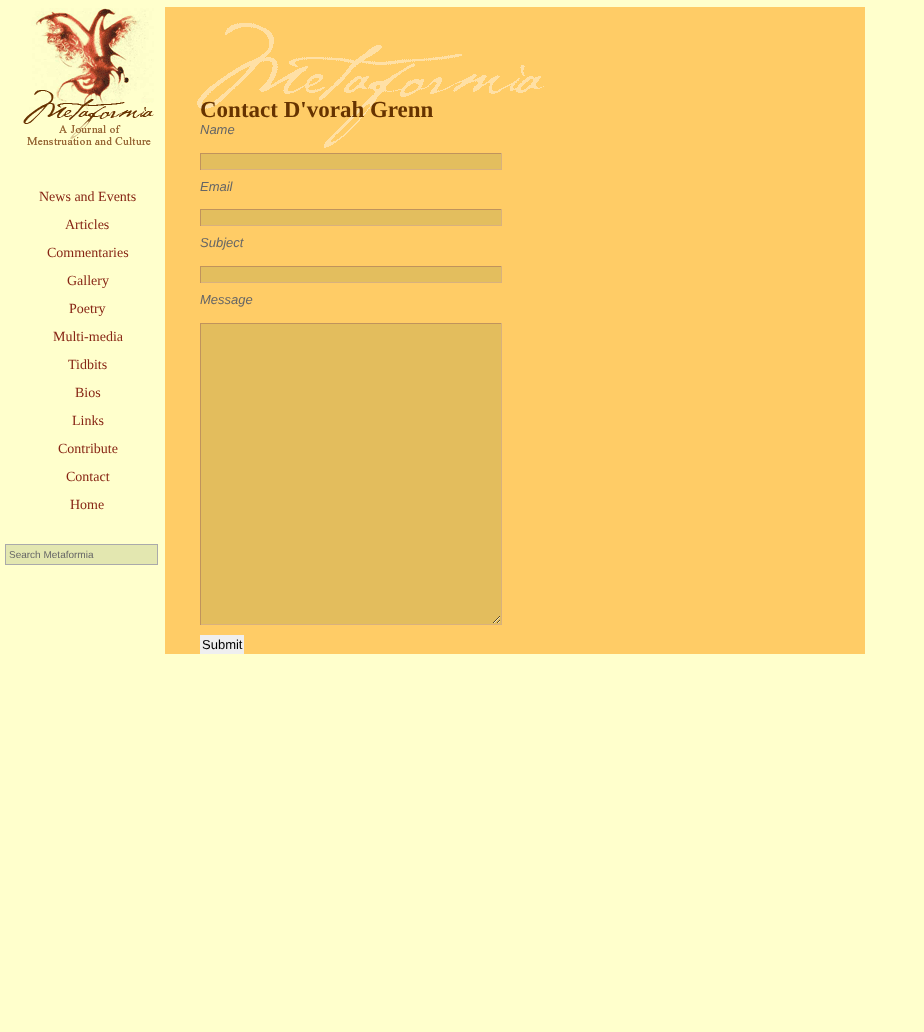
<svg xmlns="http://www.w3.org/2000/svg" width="924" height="1032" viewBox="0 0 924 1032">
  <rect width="100%" height="100%" fill="rgb(255,255,204)"/>
  <image x="23" y="8" width="131" height="137" href="pic1.png"/>
  <g font-family="Liberation Serif" font-size="14" fill="rgb(135,37,20)">
    <text x="39" y="201">News and Events</text>
    <text x="65" y="229">Articles</text>
    <text x="47" y="257">Commentaries</text>
    <text x="67" y="285">Gallery</text>
    <text x="69" y="313">Poetry</text>
    <text x="53" y="341">Multi-media</text>
    <text x="68" y="369">Tidbits</text>
    <text x="75" y="397">Bios</text>
    <text x="72" y="425">Links</text>
    <text x="58" y="453">Contribute</text>
    <text x="66" y="481">Contact</text>
    <text x="70" y="509">Home</text>
  </g>
  <rect x="5.5" y="544.5" width="152" height="20" fill="rgb(227,231,176)" stroke="rgb(170,170,170)"/>
  <text x="9" y="558" font-family="Liberation Sans" font-size="10" fill="rgb(102,102,102)">Search Metaformia</text>
  <rect x="165" y="7" width="700" height="647" fill="rgb(255,204,102)"/>
  <image x="197" y="23" width="347" height="125" href="pic2.png"/>
  <text x="200" y="117" font-family="Liberation Serif" font-size="23" font-weight="bold" fill="rgb(102,51,0)">Contact D'vorah Grenn</text>
  <text x="200" y="134" font-family="Liberation Sans" font-size="13" font-style="italic" fill="rgb(102,102,102)">Name</text>
  <rect x="201" y="154" width="300" height="15" fill="rgb(227,190,94)"/>
  <rect x="200" y="153" width="302" height="1" fill="rgb(192,147,92)"/>
  <rect x="501" y="153" width="1" height="17" fill="rgb(217,177,125)"/>
  <rect x="200" y="169" width="302" height="1" fill="rgb(217,177,125)"/>
  <rect x="200" y="153" width="1" height="17" fill="rgb(192,147,92)"/>
  <text x="200" y="191" font-family="Liberation Sans" font-size="13" font-style="italic" fill="rgb(102,102,102)">Email</text>
  <rect x="201" y="210" width="300" height="15" fill="rgb(227,190,94)"/>
  <rect x="200" y="209" width="302" height="1" fill="rgb(192,147,92)"/>
  <rect x="501" y="209" width="1" height="17" fill="rgb(217,177,125)"/>
  <rect x="200" y="225" width="302" height="1" fill="rgb(217,177,125)"/>
  <rect x="200" y="209" width="1" height="17" fill="rgb(192,147,92)"/>
  <text x="200" y="247" font-family="Liberation Sans" font-size="13" font-style="italic" fill="rgb(102,102,102)">Subject</text>
  <rect x="201" y="267" width="300" height="15" fill="rgb(227,190,94)"/>
  <rect x="200" y="266" width="302" height="1" fill="rgb(192,147,92)"/>
  <rect x="501" y="266" width="1" height="17" fill="rgb(217,177,125)"/>
  <rect x="200" y="282" width="302" height="1" fill="rgb(217,177,125)"/>
  <rect x="200" y="266" width="1" height="17" fill="rgb(192,147,92)"/>
  <text x="200" y="304" font-family="Liberation Sans" font-size="13" font-style="italic" fill="rgb(102,102,102)">Message</text>
  <image x="201" y="324" width="300" height="300" href="pic3.png"/>
  <rect x="200" y="323" width="302" height="1" fill="rgb(192,147,92)"/>
  <rect x="501" y="323" width="1" height="302" fill="rgb(217,177,125)"/>
  <rect x="200" y="624" width="302" height="1" fill="rgb(217,177,125)"/>
  <rect x="200" y="323" width="1" height="302" fill="rgb(192,147,92)"/>
  <rect x="200" y="635" width="44" height="19" fill="rgb(239,239,239)"/>
  <text x="202" y="649" font-family="Liberation Sans" font-size="13" fill="rgb(0,0,0)">Submit</text>
</svg>
